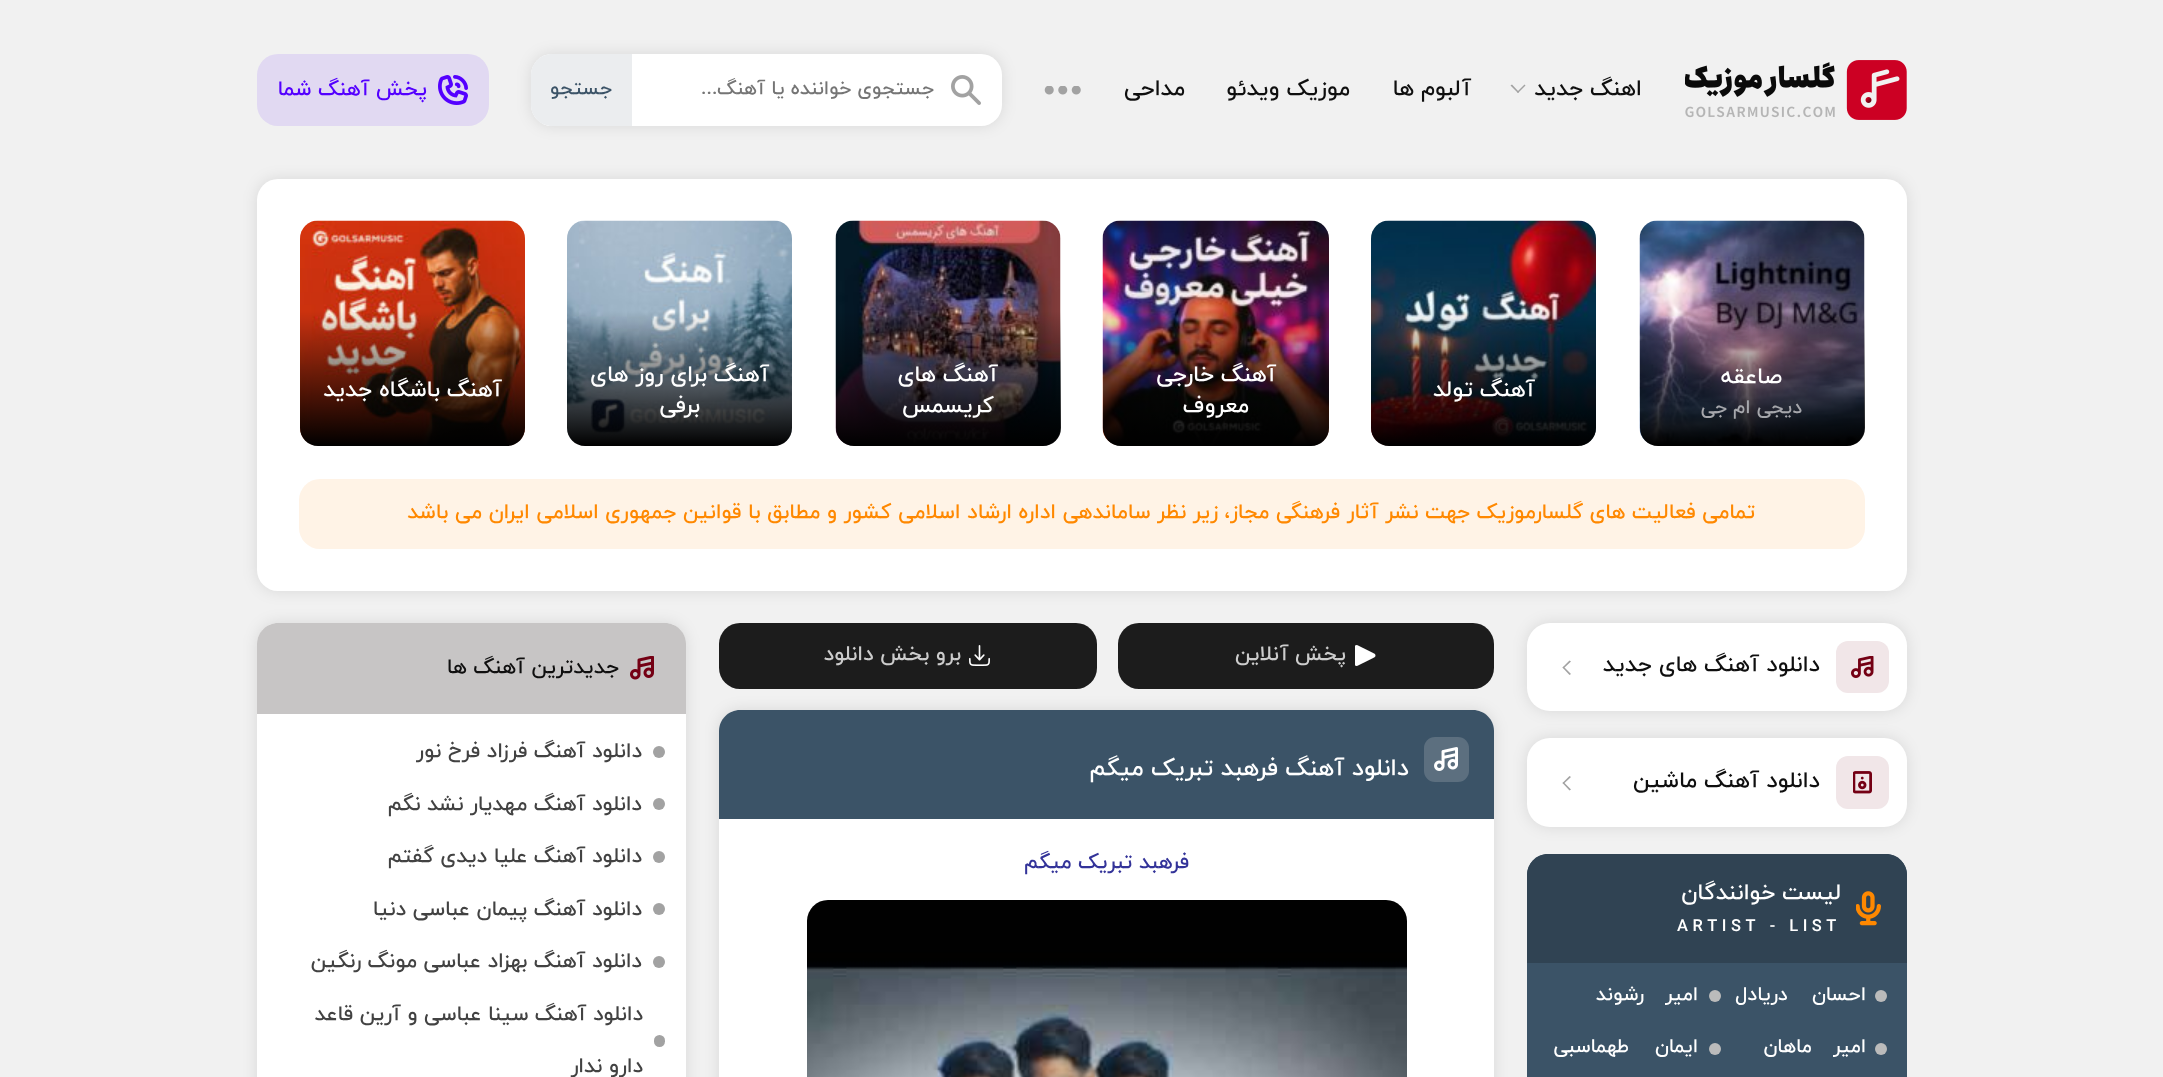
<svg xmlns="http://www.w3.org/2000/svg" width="2163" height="1077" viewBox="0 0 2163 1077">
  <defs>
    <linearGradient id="g1" gradientUnits="userSpaceOnUse" x1="1752" y1="446" x2="1752" y2="296"><stop offset="0" stop-color="rgb(0,0,0)"/><stop offset="0.9" stop-color="rgb(0,0,0)" stop-opacity="0"/></linearGradient>
    <linearGradient id="g2" gradientUnits="userSpaceOnUse" x1="1484" y1="446" x2="1484" y2="296"><stop offset="0" stop-color="rgb(0,0,0)"/><stop offset="0.9" stop-color="rgb(0,0,0)" stop-opacity="0"/></linearGradient>
    <linearGradient id="g3" gradientUnits="userSpaceOnUse" x1="1216" y1="446" x2="1216" y2="296"><stop offset="0" stop-color="rgb(0,0,0)"/><stop offset="0.9" stop-color="rgb(0,0,0)" stop-opacity="0"/></linearGradient>
    <linearGradient id="g4" gradientUnits="userSpaceOnUse" x1="948" y1="446" x2="948" y2="296"><stop offset="0" stop-color="rgb(0,0,0)"/><stop offset="0.9" stop-color="rgb(0,0,0)" stop-opacity="0"/></linearGradient>
    <linearGradient id="g5" gradientUnits="userSpaceOnUse" x1="680" y1="446" x2="680" y2="296"><stop offset="0" stop-color="rgb(0,0,0)"/><stop offset="0.9" stop-color="rgb(0,0,0)" stop-opacity="0"/></linearGradient>
    <linearGradient id="g6" gradientUnits="userSpaceOnUse" x1="413" y1="446" x2="413" y2="296"><stop offset="0" stop-color="rgb(0,0,0)"/><stop offset="0.9" stop-color="rgb(0,0,0)" stop-opacity="0"/></linearGradient>
  </defs>
  <rect width="100%" height="100%" fill="rgb(241,241,241)"/>
  <image x="1685" y="60" width="222" height="60" href="pic1.png"/>
  <text x="1642" y="95" font-family="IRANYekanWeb" font-size="22.5" font-weight="500" direction="rtl" fill="rgb(15,15,15)">اهنگ جدید</text>
  <path d="M1524.5 84.5L1525.5 85.5L1518 93L1517 92Z" fill="rgb(162,162,162)"/>
  <path d="M1512 84.5L1519 92L1518 93L1510.5 85.5Z" fill="rgb(162,162,162)"/>
  <g font-family="IRANYekanWeb" font-size="22.5" font-weight="500" direction="rtl" fill="rgb(15,15,15)">
    <text x="1471" y="95">آلبوم ها</text>
    <text x="1350" y="95">موزیک ویدئو</text>
    <text x="1185" y="95">مداحی</text>
  </g>
  <image x="1044" y="86" width="37" height="9" href="pic2.png"/>
  <rect x="531" y="54" width="471" height="72" rx="21" fill="rgba(0,0,0,0.1)" filter="blur(7.5px)"/>
  <rect x="531" y="54" width="471" height="72" rx="21" fill="rgb(255,255,255)"/>
  <image x="951" y="75" width="30" height="30" href="pic3.png"/>
  <text x="934" y="94" font-family="IRANYekanWeb" font-size="19.5" font-weight="500" direction="rtl" fill="rgb(117,117,117)">جستجوی خواننده یا آهنگ...</text>
  <path d="M552 54H632V126H552C540.5 126 531 116.5 531 105V75C531 63.5 540.5 54 552 54Z" fill="rgb(235,237,239)"/>
  <text x="612" y="94" font-family="IRANYekanWeb" font-size="19.5" font-weight="500" direction="rtl" fill="rgb(59,83,103)">جستجو</text>
  <rect x="257" y="54" width="232" height="72" rx="21" fill="rgb(225,217,242)"/>
  <image x="438" y="75" width="30" height="30" href="pic4.png"/>
  <text x="427" y="95" font-family="IRANYekanWeb" font-size="21" font-weight="500" direction="rtl" fill="rgb(84,0,255)">پخش آهنگ شما</text>
  <rect x="257" y="179" width="1650" height="412" rx="21" fill="rgba(0,0,0,0.1)" filter="blur(7.5px)"/>
  <rect x="257" y="179" width="1650" height="412" rx="21" fill="rgb(255,255,255)"/>
  <image x="1639" y="220" width="226" height="226" href="pic5.png"/>
  <path d="M1640 296H1865V428C1865 438 1857 446 1847 446H1658C1648 446 1640 438 1640 428Z" fill="url(#g1)"/>
  <text x="1782" y="383" font-family="IRANYekanWeb" font-size="22.5" font-weight="500" direction="rtl" fill="rgb(255,255,255)">صاعقه</text>
  <text x="1802" y="413" font-family="IRANYekanWeb" font-size="19.5" font-weight="500" direction="rtl" fill="rgb(166,167,172)">دیجی ام جی</text>
  <image x="1371" y="220" width="225" height="226" href="pic6.png"/>
  <path d="M1371 296H1596V428C1596 438 1588 446 1578 446H1389C1379 446 1371 438 1371 428Z" fill="url(#g2)"/>
  <text x="1535" y="396" font-family="IRANYekanWeb" font-size="22.5" font-weight="500" direction="rtl" fill="rgb(255,255,255)">آهنگ تولد</text>
  <image x="1102" y="220" width="227" height="226" href="pic7.png"/>
  <path d="M1103 296H1329V428C1329 438 1321 446 1311 446H1121C1111 446 1103 438 1103 428Z" fill="url(#g3)"/>
  <g font-family="IRANYekanWeb" font-size="22.5" font-weight="500" direction="rtl" fill="rgb(255,255,255)">
    <text x="1276" y="381">آهنگ خارجی</text>
    <text x="1249" y="412">معروف</text>
  </g>
  <image x="835" y="220" width="226" height="226" href="pic8.png"/>
  <path d="M836 296H1061V428C1061 438 1053 446 1043 446H854C844 446 836 438 836 428Z" fill="url(#g4)"/>
  <g font-family="IRANYekanWeb" font-size="22.5" font-weight="500" direction="rtl" fill="rgb(255,255,255)">
    <text x="998" y="381">آهنگ های</text>
    <text x="994" y="412">کریسمس</text>
  </g>
  <image x="567" y="220" width="225" height="226" href="pic9.png"/>
  <path d="M567 296H792V428C792 438 784 446 774 446H585C575 446 567 438 567 428Z" fill="url(#g5)"/>
  <g font-family="IRANYekanWeb" font-size="22.5" font-weight="500" direction="rtl" fill="rgb(255,255,255)">
    <text x="769" y="381">آهنگ برای روز های</text>
    <text x="700" y="412">برفی</text>
  </g>
  <image x="300" y="220" width="225" height="226" href="pic10.png"/>
  <path d="M300 296H525V428C525 438 517 446 507 446H318C308 446 300 438 300 428Z" fill="url(#g6)"/>
  <text x="502" y="396" font-family="IRANYekanWeb" font-size="22.5" font-weight="500" direction="rtl" fill="rgb(255,255,255)">آهنگ باشگاه جدید</text>
  <rect x="299" y="479" width="1566" height="70" rx="21" fill="rgb(255,243,230)"/>
  <text x="1755" y="518" font-family="IRANYekanWeb" font-size="21" font-weight="500" direction="rtl" fill="rgb(255,136,0)">تمامی فعالیت های گلسارموزیک جهت نشر آثار فرهنگی مجاز، زیر نظر ساماندهی اداره ارشاد اسلامی کشور و مطابق با قوانین جمهوری اسلامی ایران می باشد</text>
  <rect x="1527" y="623" width="380" height="88" rx="23" fill="rgba(0,0,0,0.1)" filter="blur(7.5px)"/>
  <rect x="1527" y="623" width="380" height="88" rx="23" fill="rgb(255,255,255)"/>
  <rect x="1836" y="641" width="53" height="52" rx="12" fill="rgb(241,230,232)"/>
  <image x="1851" y="656" width="23" height="22" href="pic11.png"/>
  <text x="1820" y="671" font-family="IRANYekanWeb" font-size="22.5" font-weight="500" direction="rtl" fill="rgb(15,15,15)">دانلود آهنگ های جدید</text>
  <path d="M1563.5 666.5L1571 674L1569.5 675L1562.5 667.5Z" fill="rgb(162,162,162)"/>
  <path d="M1569.5 660.5L1571 661.5L1563.5 668.5L1562.5 667.5Z" fill="rgb(162,162,162)"/>
  <rect x="1527" y="738" width="380" height="89" rx="23" fill="rgba(0,0,0,0.1)" filter="blur(7.5px)"/>
  <rect x="1527" y="738" width="380" height="89" rx="23" fill="rgb(255,255,255)"/>
  <rect x="1836" y="756" width="53" height="53" rx="12" fill="rgb(241,230,232)"/>
  <image x="1853" y="771" width="19" height="23" href="pic12.png"/>
  <text x="1820" y="787" font-family="IRANYekanWeb" font-size="22.5" font-weight="500" direction="rtl" fill="rgb(15,15,15)">دانلود آهنگ ماشین</text>
  <path d="M1563.5 782L1571 789.5L1569.5 790.5L1562.5 783Z" fill="rgb(162,162,162)"/>
  <path d="M1569.5 776L1571 777L1563.5 784L1562.5 783Z" fill="rgb(162,162,162)"/>
  <rect x="1527" y="854" width="380" height="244" rx="21" fill="rgb(59,83,103)"/>
  <path d="M1548 854H1886C1897.5 854 1907 863.5 1907 875V963H1527V875C1527 863.5 1536.5 854 1548 854Z" fill="rgb(48,67,83)"/>
  <image x="1856" y="891" width="25" height="35" href="pic13.png"/>
  <text x="1841" y="899" font-family="IRANYekanWeb" font-size="22.5" font-weight="500" direction="rtl" fill="rgb(255,255,255)">لیست خوانندگان</text>
  <text x="1677" y="931" font-family="IRANYekanWeb" font-size="16.5" font-weight="500" letter-spacing="4.5" fill="rgb(255,255,255)">ARTIST - LIST</text>
  <circle cx="1881" cy="996" r="6" fill="rgb(187,187,187)"/>
  <text x="1866" y="1000" word-spacing="18" font-family="IRANYekanWeb" font-size="19.5" font-weight="500" letter-spacing="-1.5" direction="rtl" fill="rgb(255,255,255)">احسان دریادل</text>
  <circle cx="1715" cy="996" r="6" fill="rgb(187,187,187)"/>
  <text x="1698" y="1000" word-spacing="15" font-family="IRANYekanWeb" font-size="19.5" font-weight="500" letter-spacing="-1.5" direction="rtl" fill="rgb(255,255,255)">امیر رشوند</text>
  <circle cx="1881" cy="1049" r="6" fill="rgb(187,187,187)"/>
  <text x="1866" y="1052" word-spacing="15" font-family="IRANYekanWeb" font-size="19.5" font-weight="500" letter-spacing="-1.5" direction="rtl" fill="rgb(255,255,255)">امیر ماهان</text>
  <circle cx="1715" cy="1049" r="6" fill="rgb(187,187,187)"/>
  <text x="1698" y="1052" word-spacing="20" font-family="IRANYekanWeb" font-size="19.5" font-weight="500" letter-spacing="-1.5" direction="rtl" fill="rgb(255,255,255)">ایمان طهماسبی</text>
  <rect x="1118" y="623" width="376" height="66" rx="21" fill="rgb(28,28,28)"/>
  <image x="1355" y="645" width="21" height="21" href="pic14.png"/>
  <text x="1346" y="660" font-family="IRANYekanWeb" font-size="21" font-weight="500" direction="rtl" fill="rgb(204,204,204)">پخش آنلاین</text>
  <rect x="719" y="623" width="378" height="66" rx="21" fill="rgb(28,28,28)"/>
  <image x="969" y="645" width="21" height="21" href="pic15.png"/>
  <text x="961" y="660" font-family="IRANYekanWeb" font-size="21" font-weight="500" direction="rtl" fill="rgb(204,204,204)">برو بخش دانلود</text>
  <rect x="719" y="710" width="775" height="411" rx="21" fill="rgba(0,0,0,0.1)" filter="blur(7.5px)"/>
  <rect x="719" y="710" width="775" height="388" rx="21" fill="rgb(255,255,255)"/>
  <path d="M740 710H1473C1484.5 710 1494 719.5 1494 731V819H719V731C719 719.5 728.5 710 740 710Z" fill="rgb(59,83,103)"/>
  <rect x="1424" y="737" width="45" height="45" rx="11" fill="rgb(92,111,127)"/>
  <image x="1434" y="747" width="24" height="24" href="pic16.png"/>
  <text x="1409" y="775" font-family="IRANYekanWeb" font-size="24" font-weight="500" direction="rtl" fill="rgb(255,255,255)">دانلود آهنگ فرهبد تبریک میگم</text>
  <text x="1189" y="868" font-family="IRANYekanWeb" font-size="21" font-weight="500" direction="rtl" fill="rgb(51,51,153)">فرهبد تبریک میگم</text>
  <image x="807" y="900" width="600" height="177" href="pic17.png"/>
  <rect x="257" y="623" width="429" height="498" rx="21" fill="rgba(0,0,0,0.1)" filter="blur(7.5px)"/>
  <rect x="257" y="623" width="429" height="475" rx="21" fill="rgb(255,255,255)"/>
  <path d="M278 623H665C676.5 623 686 632.5 686 644V714H257V644C257 632.5 266.5 623 278 623Z" fill="rgb(199,197,197)"/>
  <image x="630" y="656" width="24" height="24" href="pic18.png"/>
  <text x="619" y="673" font-family="IRANYekanWeb" font-size="21" font-weight="500" direction="rtl" fill="rgb(15,15,15)">جدیدترین آهنگ ها</text>
  <circle cx="659" cy="752" r="6" fill="rgb(162,162,162)"/>
  <text x="642" y="757" font-family="IRANYekanWeb" font-size="21" font-weight="500" direction="rtl" fill="rgb(66,66,66)">دانلود آهنگ فرزاد فرخ نور</text>
  <circle cx="659" cy="804" r="6" fill="rgb(162,162,162)"/>
  <text x="642" y="810" font-family="IRANYekanWeb" font-size="21" font-weight="500" direction="rtl" fill="rgb(66,66,66)">دانلود آهنگ مهدیار نشد نگم</text>
  <circle cx="659" cy="857" r="6" fill="rgb(162,162,162)"/>
  <text x="642" y="862" font-family="IRANYekanWeb" font-size="21" font-weight="500" direction="rtl" fill="rgb(66,66,66)">دانلود آهنگ علیا دیدی گفتم</text>
  <circle cx="659" cy="909" r="6" fill="rgb(162,162,162)"/>
  <text x="642" y="915" font-family="IRANYekanWeb" font-size="21" font-weight="500" direction="rtl" fill="rgb(66,66,66)">دانلود آهنگ پیمان عباسی دنیا</text>
  <circle cx="659" cy="962" r="6" fill="rgb(162,162,162)"/>
  <g font-family="IRANYekanWeb" font-size="21" font-weight="500" direction="rtl" fill="rgb(66,66,66)">
    <text x="642" y="967">دانلود آهنگ بهزاد عباسی مونگ رنگین</text>
    <text x="643" y="1020">دانلود آهنگ سینا عباسی و آرین قاعد</text>
  </g>
  <rect x="654" y="1035" width="11" height="12" rx="5.5" fill="rgb(162,162,162)"/>
  <text x="643" y="1072" font-family="IRANYekanWeb" font-size="21" font-weight="500" direction="rtl" fill="rgb(66,66,66)">دارو ندار</text>
</svg>
